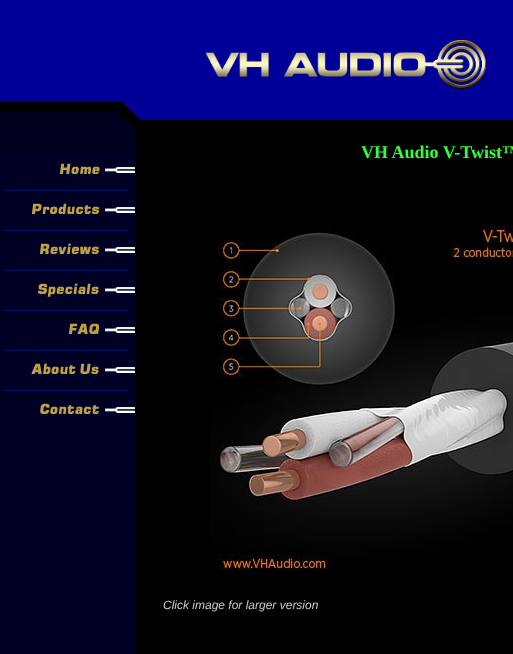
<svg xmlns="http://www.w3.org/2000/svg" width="513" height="654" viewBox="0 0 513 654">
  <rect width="100%" height="100%" fill="rgb(0,0,0)"/>
  <rect x="0" y="0" width="513" height="120" fill="rgb(0,0,153)"/>
  <image x="205" y="40" width="281" height="49" href="pic1.png"/>
  <image x="0" y="101" width="141" height="19" href="pic2.png"/>
  <image x="0" y="120" width="153" height="534" href="pic3.png"/>
  <image x="0" y="120" width="136" height="31" href="pic4.png"/>
  <image x="4" y="163" width="131" height="28" href="pic5.png"/>
  <image x="4" y="203" width="131" height="28" href="pic6.png"/>
  <image x="4" y="243" width="131" height="28" href="pic7.png"/>
  <image x="4" y="283" width="131" height="28" href="pic8.png"/>
  <image x="4" y="323" width="131" height="28" href="pic9.png"/>
  <image x="4" y="363" width="131" height="28" href="pic10.png"/>
  <image x="40" y="403" width="95" height="11" href="pic11.png"/>
  <text x="361" y="158" font-family="Liberation Serif" font-size="18" font-weight="bold" fill="rgb(51,255,51)">VH Audio V-Twist™</text>
  <image x="210" y="218" width="303" height="352" href="pic12.png"/>
  <text x="163" y="609" font-family="Liberation Sans" font-size="12" font-style="italic" fill="rgb(204,204,204)">Click image for larger version</text>
</svg>
